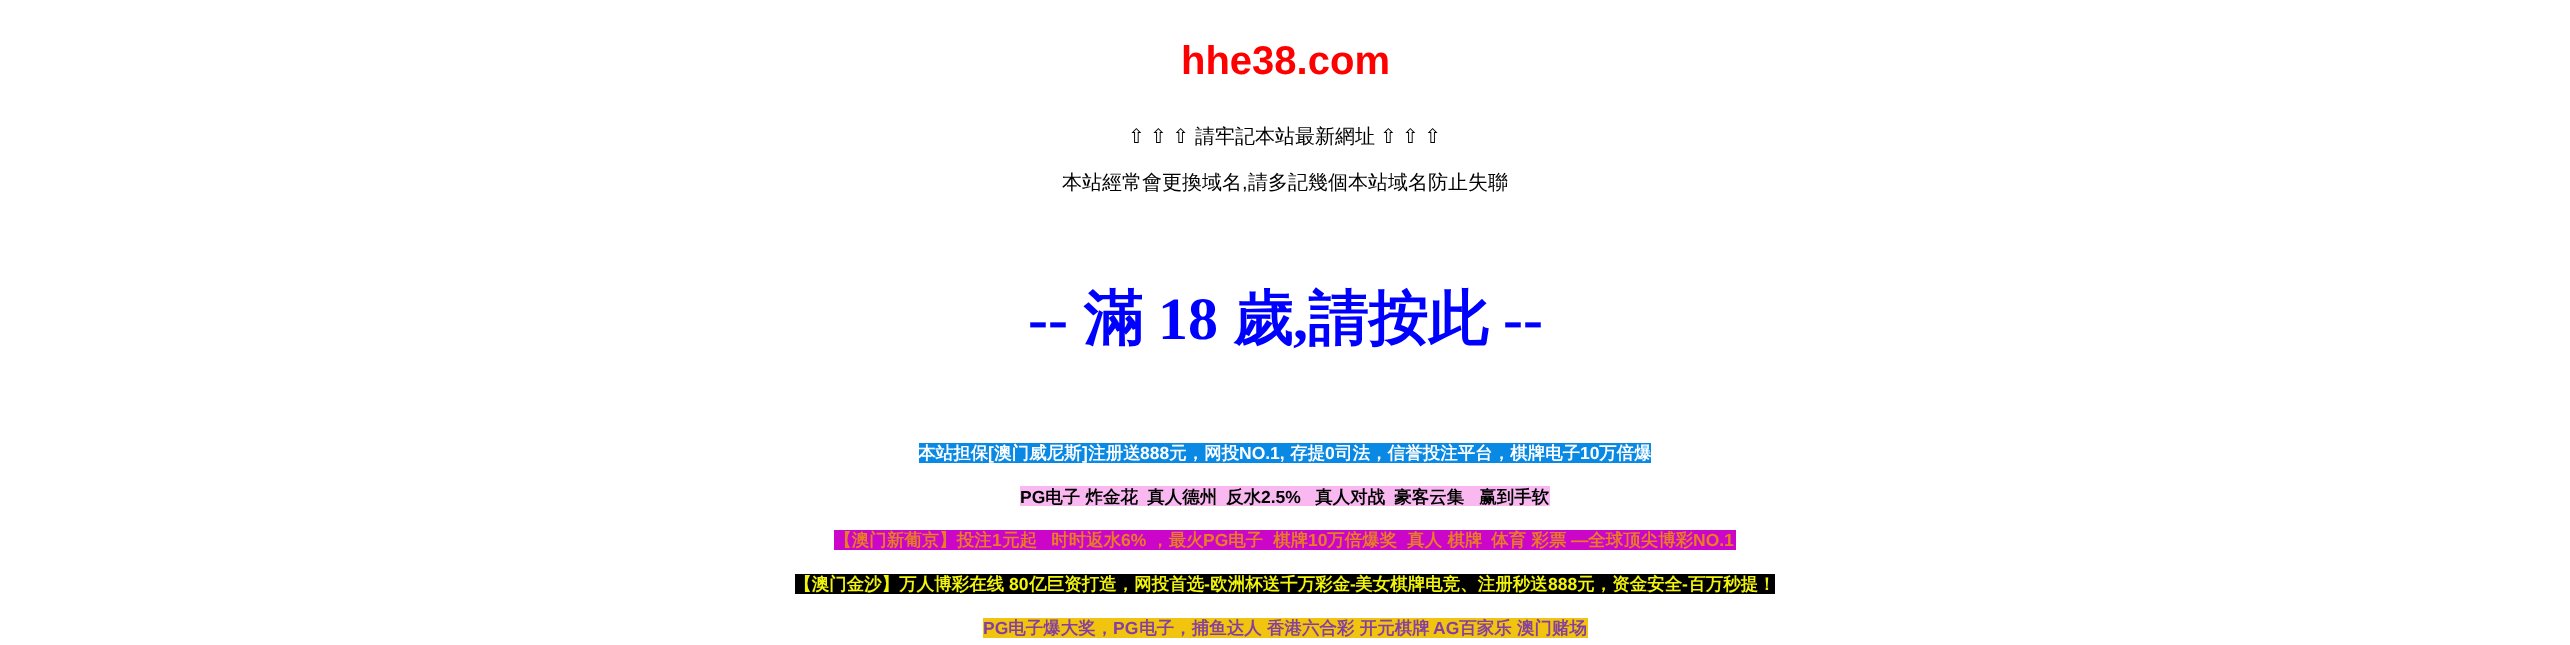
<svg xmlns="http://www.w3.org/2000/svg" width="2570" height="645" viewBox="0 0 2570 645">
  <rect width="100%" height="100%" fill="rgb(255,255,255)"/>
  <text x="1181" y="74" font-family="Liberation Sans" font-size="40" font-weight="bold" fill="rgb(255,0,0)">hhe38.com</text>
  <text x="1128" y="143" word-spacing="-1" font-family="DejaVu Sans" font-size="20" fill="rgb(0,0,0)">⇧ ⇧ ⇧</text>
  <text x="1195" y="143" font-family="WenQuanYi Zen Hei" font-size="20" font-weight="500" fill="rgb(0,0,0)">請牢記本站最新網址</text>
  <text x="1380" y="143" word-spacing="-1" font-family="DejaVu Sans" font-size="20" fill="rgb(0,0,0)">⇧ ⇧ ⇧</text>
  <text x="1062" y="189" font-family="WenQuanYi Zen Hei" font-size="20" font-weight="500" fill="rgb(0,0,0)">本站經常會更換域名</text>
  <text x="1242" y="189" font-family="Liberation Sans" font-size="20" fill="rgb(0,0,0)">,</text>
  <text x="1248" y="189" font-family="WenQuanYi Zen Hei" font-size="20" font-weight="500" fill="rgb(0,0,0)">請多記幾個本站域名防止失聯</text>
  <text x="1028" y="339" font-family="Liberation Serif" font-size="60" font-weight="bold" fill="rgb(0,0,255)">--</text>
  <text x="1083" y="339" font-family="WenQuanYi Zen Hei" font-size="60" font-weight="bold" fill="rgb(0,0,255)">滿</text>
  <text x="1158" y="339" font-family="Liberation Serif" font-size="60" font-weight="bold" fill="rgb(0,0,255)">18</text>
  <g font-family="WenQuanYi Zen Hei" font-size="60" font-weight="bold" fill="rgb(0,0,255)">
    <text x="1233" y="339">歲</text>
    <text x="1308" y="339">請按此</text>
  </g>
  <g font-family="Liberation Serif" font-size="60" font-weight="bold" fill="rgb(0,0,255)">
    <text x="1503" y="339">--</text>
    <text x="1293" y="339">,</text>
  </g>
  <rect x="919" y="443" width="732" height="20" fill="rgb(9,137,227)"/>
  <text x="918" y="459" font-family="WenQuanYi Zen Hei" font-size="17.5" font-weight="bold" fill="rgb(255,255,255)">本站担保</text>
  <text x="988" y="459" font-family="Liberation Sans" font-size="17.5" font-weight="bold" fill="rgb(255,255,255)">[</text>
  <text x="994" y="459" font-family="WenQuanYi Zen Hei" font-size="17.5" font-weight="bold" fill="rgb(255,255,255)">澳门威尼斯</text>
  <text x="1082" y="459" font-family="Liberation Sans" font-size="17.5" font-weight="bold" fill="rgb(255,255,255)">]</text>
  <text x="1088" y="459" font-family="WenQuanYi Zen Hei" font-size="17.5" font-weight="bold" fill="rgb(255,255,255)">注册送</text>
  <text x="1140" y="459" font-family="Liberation Sans" font-size="17.5" font-weight="bold" fill="rgb(255,255,255)">888</text>
  <text x="1169" y="459" font-family="WenQuanYi Zen Hei" font-size="17.5" font-weight="bold" fill="rgb(255,255,255)">元，网投</text>
  <text x="1239" y="459" font-family="Liberation Sans" font-size="17.5" font-weight="bold" fill="rgb(255,255,255)">NO.1,</text>
  <text x="1290" y="459" font-family="WenQuanYi Zen Hei" font-size="17.5" font-weight="bold" fill="rgb(255,255,255)">存提</text>
  <text x="1325" y="459" font-family="Liberation Sans" font-size="17.5" font-weight="bold" fill="rgb(255,255,255)">0</text>
  <text x="1335" y="459" font-family="WenQuanYi Zen Hei" font-size="17.5" font-weight="bold" fill="rgb(255,255,255)">司法，信誉投注平台，棋牌电子</text>
  <text x="1580" y="459" font-family="Liberation Sans" font-size="17.5" font-weight="bold" fill="rgb(255,255,255)">10</text>
  <text x="1599" y="459" font-family="WenQuanYi Zen Hei" font-size="17.5" font-weight="bold" fill="rgb(255,255,255)">万倍爆</text>
  <rect x="1020" y="486" width="530" height="20" fill="rgb(249,185,240)"/>
  <text x="1020" y="503" font-family="Liberation Sans" font-size="17.5" font-weight="bold" fill="rgb(0,0,0)">PG</text>
  <g font-family="WenQuanYi Zen Hei" font-size="17.5" font-weight="bold" fill="rgb(0,0,0)">
    <text x="1045" y="503">电子 炸金花</text>
    <text x="1147" y="503">真人德州</text>
    <text x="1226" y="503">反水</text>
  </g>
  <text x="1261" y="503" font-family="Liberation Sans" font-size="17.5" font-weight="bold" fill="rgb(0,0,0)">2.5%</text>
  <g font-family="WenQuanYi Zen Hei" font-size="17.5" font-weight="bold" fill="rgb(0,0,0)">
    <text x="1315" y="503">真人对战</text>
    <text x="1394" y="503">豪客云集</text>
    <text x="1479" y="503">赢到手软</text>
  </g>
  <rect x="834" y="530" width="902" height="20" fill="rgb(204,6,201)"/>
  <text x="834" y="546" font-family="WenQuanYi Zen Hei" font-size="17.5" font-weight="bold" fill="rgb(230,126,35)">【澳门新葡京】投注</text>
  <text x="992" y="546" font-family="Liberation Sans" font-size="17.5" font-weight="bold" fill="rgb(230,126,35)">1</text>
  <g font-family="WenQuanYi Zen Hei" font-size="17.5" font-weight="bold" fill="rgb(230,126,35)">
    <text x="1002" y="546">元起</text>
    <text x="1051" y="546">时时返水</text>
  </g>
  <text x="1121" y="546" font-family="Liberation Sans" font-size="17.5" font-weight="bold" fill="rgb(230,126,35)">6%</text>
  <text x="1151" y="546" font-family="WenQuanYi Zen Hei" font-size="17.5" font-weight="bold" fill="rgb(230,126,35)">，最火</text>
  <text x="1203" y="546" font-family="Liberation Sans" font-size="17.5" font-weight="bold" fill="rgb(230,126,35)">PG</text>
  <g font-family="WenQuanYi Zen Hei" font-size="17.5" font-weight="bold" fill="rgb(230,126,35)">
    <text x="1228" y="546">电子</text>
    <text x="1273" y="546">棋牌</text>
  </g>
  <text x="1308" y="546" font-family="Liberation Sans" font-size="17.5" font-weight="bold" fill="rgb(230,126,35)">10</text>
  <g font-family="WenQuanYi Zen Hei" font-size="17.5" font-weight="bold" fill="rgb(230,126,35)">
    <text x="1327" y="546">万倍爆奖</text>
    <text x="1407" y="546">真人 棋牌</text>
    <text x="1491" y="546">体育 彩票</text>
  </g>
  <text x="1571" y="546" font-family="Liberation Sans" font-size="17.5" font-weight="bold" fill="rgb(230,126,35)">—</text>
  <text x="1588" y="546" font-family="WenQuanYi Zen Hei" font-size="17.5" font-weight="bold" fill="rgb(230,126,35)">全球顶尖博彩</text>
  <text x="1693" y="546" font-family="Liberation Sans" font-size="17.5" font-weight="bold" fill="rgb(230,126,35)">NO.1</text>
  <rect x="795" y="574" width="980" height="20" fill="rgb(0,0,0)"/>
  <text x="794" y="590" font-family="WenQuanYi Zen Hei" font-size="17.5" font-weight="bold" fill="rgb(242,245,12)">【澳门金沙】万人博彩在线</text>
  <text x="1009" y="590" font-family="Liberation Sans" font-size="17.5" font-weight="bold" fill="rgb(242,245,12)">80</text>
  <text x="1029" y="590" font-family="WenQuanYi Zen Hei" font-size="17.5" font-weight="bold" fill="rgb(242,245,12)">亿巨资打造，网投首选</text>
  <text x="1204" y="590" font-family="Liberation Sans" font-size="17.5" font-weight="bold" fill="rgb(242,245,12)">-</text>
  <text x="1210" y="590" font-family="WenQuanYi Zen Hei" font-size="17.5" font-weight="bold" fill="rgb(242,245,12)">欧洲杯送千万彩金</text>
  <text x="1350" y="590" font-family="Liberation Sans" font-size="17.5" font-weight="bold" fill="rgb(242,245,12)">-</text>
  <text x="1355" y="590" font-family="WenQuanYi Zen Hei" font-size="17.5" font-weight="bold" fill="rgb(242,245,12)">美女棋牌电竞、注册秒送</text>
  <text x="1548" y="590" font-family="Liberation Sans" font-size="17.5" font-weight="bold" fill="rgb(242,245,12)">888</text>
  <text x="1577" y="590" font-family="WenQuanYi Zen Hei" font-size="17.5" font-weight="bold" fill="rgb(242,245,12)">元，资金安全</text>
  <text x="1682" y="590" font-family="Liberation Sans" font-size="17.5" font-weight="bold" fill="rgb(242,245,12)">-</text>
  <text x="1688" y="590" font-family="WenQuanYi Zen Hei" font-size="17.5" font-weight="bold" fill="rgb(242,245,12)">百万秒提！</text>
  <rect x="983" y="618" width="605" height="20" fill="rgb(241,196,15)"/>
  <text x="983" y="634" font-family="Liberation Sans" font-size="17.5" font-weight="bold" fill="rgb(132,63,161)">PG</text>
  <text x="1008" y="634" font-family="WenQuanYi Zen Hei" font-size="17.5" font-weight="bold" fill="rgb(132,63,161)">电子爆大奖，</text>
  <text x="1113" y="634" font-family="Liberation Sans" font-size="17.5" font-weight="bold" fill="rgb(132,63,161)">PG</text>
  <text x="1139" y="634" font-family="WenQuanYi Zen Hei" font-size="17.5" font-weight="bold" fill="rgb(132,63,161)">电子，捕鱼达人 香港六合彩 开元棋牌</text>
  <text x="1433" y="634" font-family="Liberation Sans" font-size="17.5" font-weight="bold" fill="rgb(132,63,161)">AG</text>
  <text x="1459" y="634" font-family="WenQuanYi Zen Hei" font-size="17.5" font-weight="bold" fill="rgb(132,63,161)">百家乐 澳门赌场</text>
</svg>
